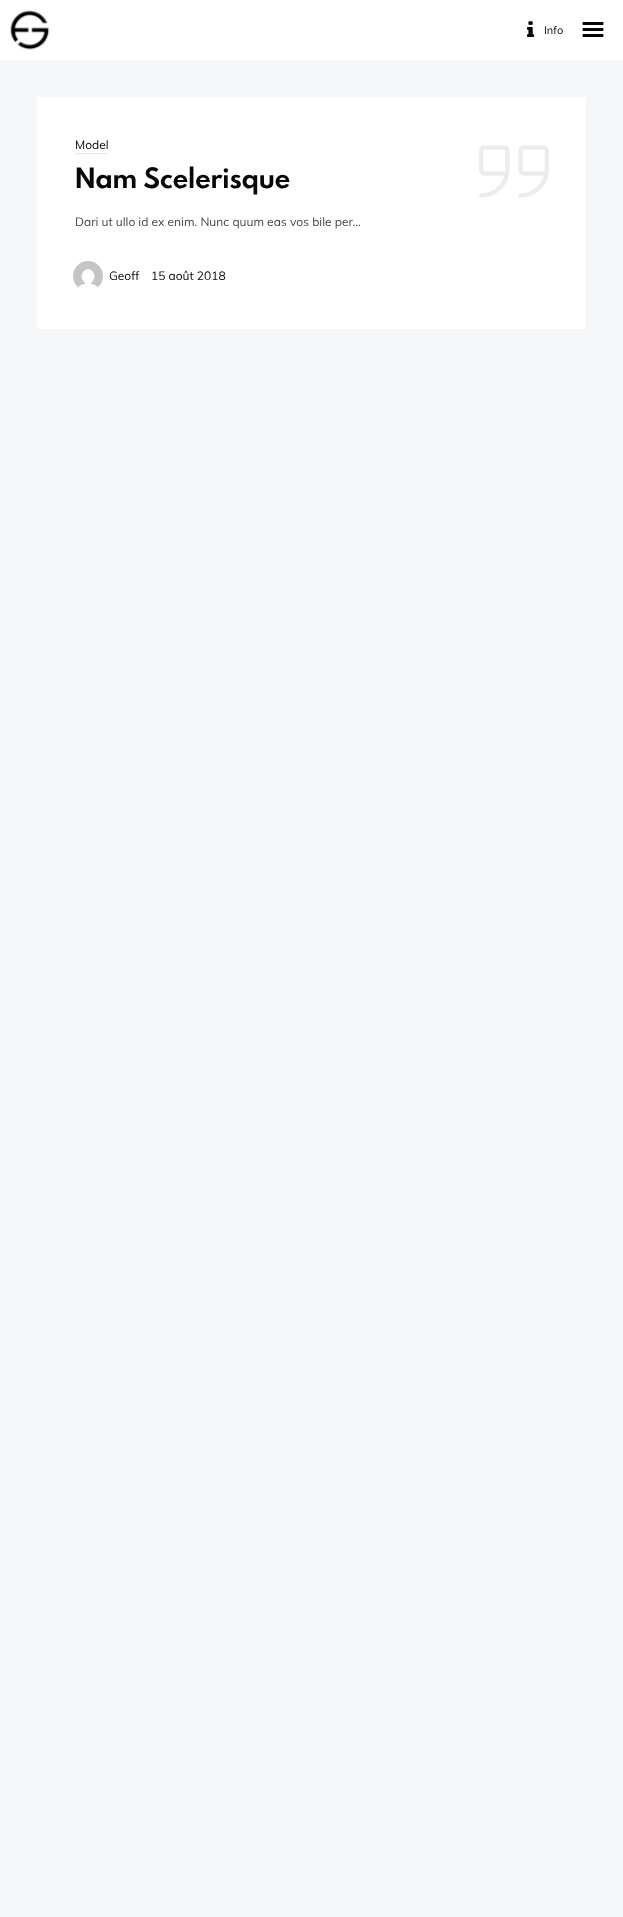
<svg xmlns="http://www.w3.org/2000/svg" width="623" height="1917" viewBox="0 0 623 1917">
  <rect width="100%" height="100%" fill="rgb(246,247,248)"/>
  <rect x="0" y="0" width="623" height="60" fill="rgb(255,255,255)"/>
  <image x="10" y="10" width="40" height="40" href="pic1.png"/>
  <image x="527" y="21" width="8" height="16" href="pic2.png"/>
  <text x="544" y="34" font-family="Muli" font-size="11" fill="rgb(6,7,8)">Info</text>
  <image x="582" y="22" width="22" height="15" href="pic3.png"/>
  <rect x="37" y="97" width="549" height="232" fill="rgb(255,255,255)"/>
  <text x="75" y="149" font-family="Muli" font-size="12" fill="rgb(6,7,8)">Model</text>
  <rect x="75" y="153" width="33" height="1" fill="rgb(230,230,230)"/>
  <image x="479" y="145" width="70" height="53" href="pic4.png"/>
  <text x="75" y="188" font-family="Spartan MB" font-size="25" font-weight="bold" fill="rgb(6,7,8)">Nam Scelerisque</text>
  <text x="75" y="226" font-family="Muli" font-size="12" fill="rgb(70,71,72)">Dari ut ullo id ex enim. Nunc quum eas vos bile per…</text>
  <image x="73" y="261" width="30" height="27" href="pic5.png"/>
  <g font-family="Muli" font-size="12" fill="rgb(6,7,8)">
    <text x="109" y="280">Geoff</text>
    <text x="151" y="280">15 août 2018</text>
  </g>
</svg>
